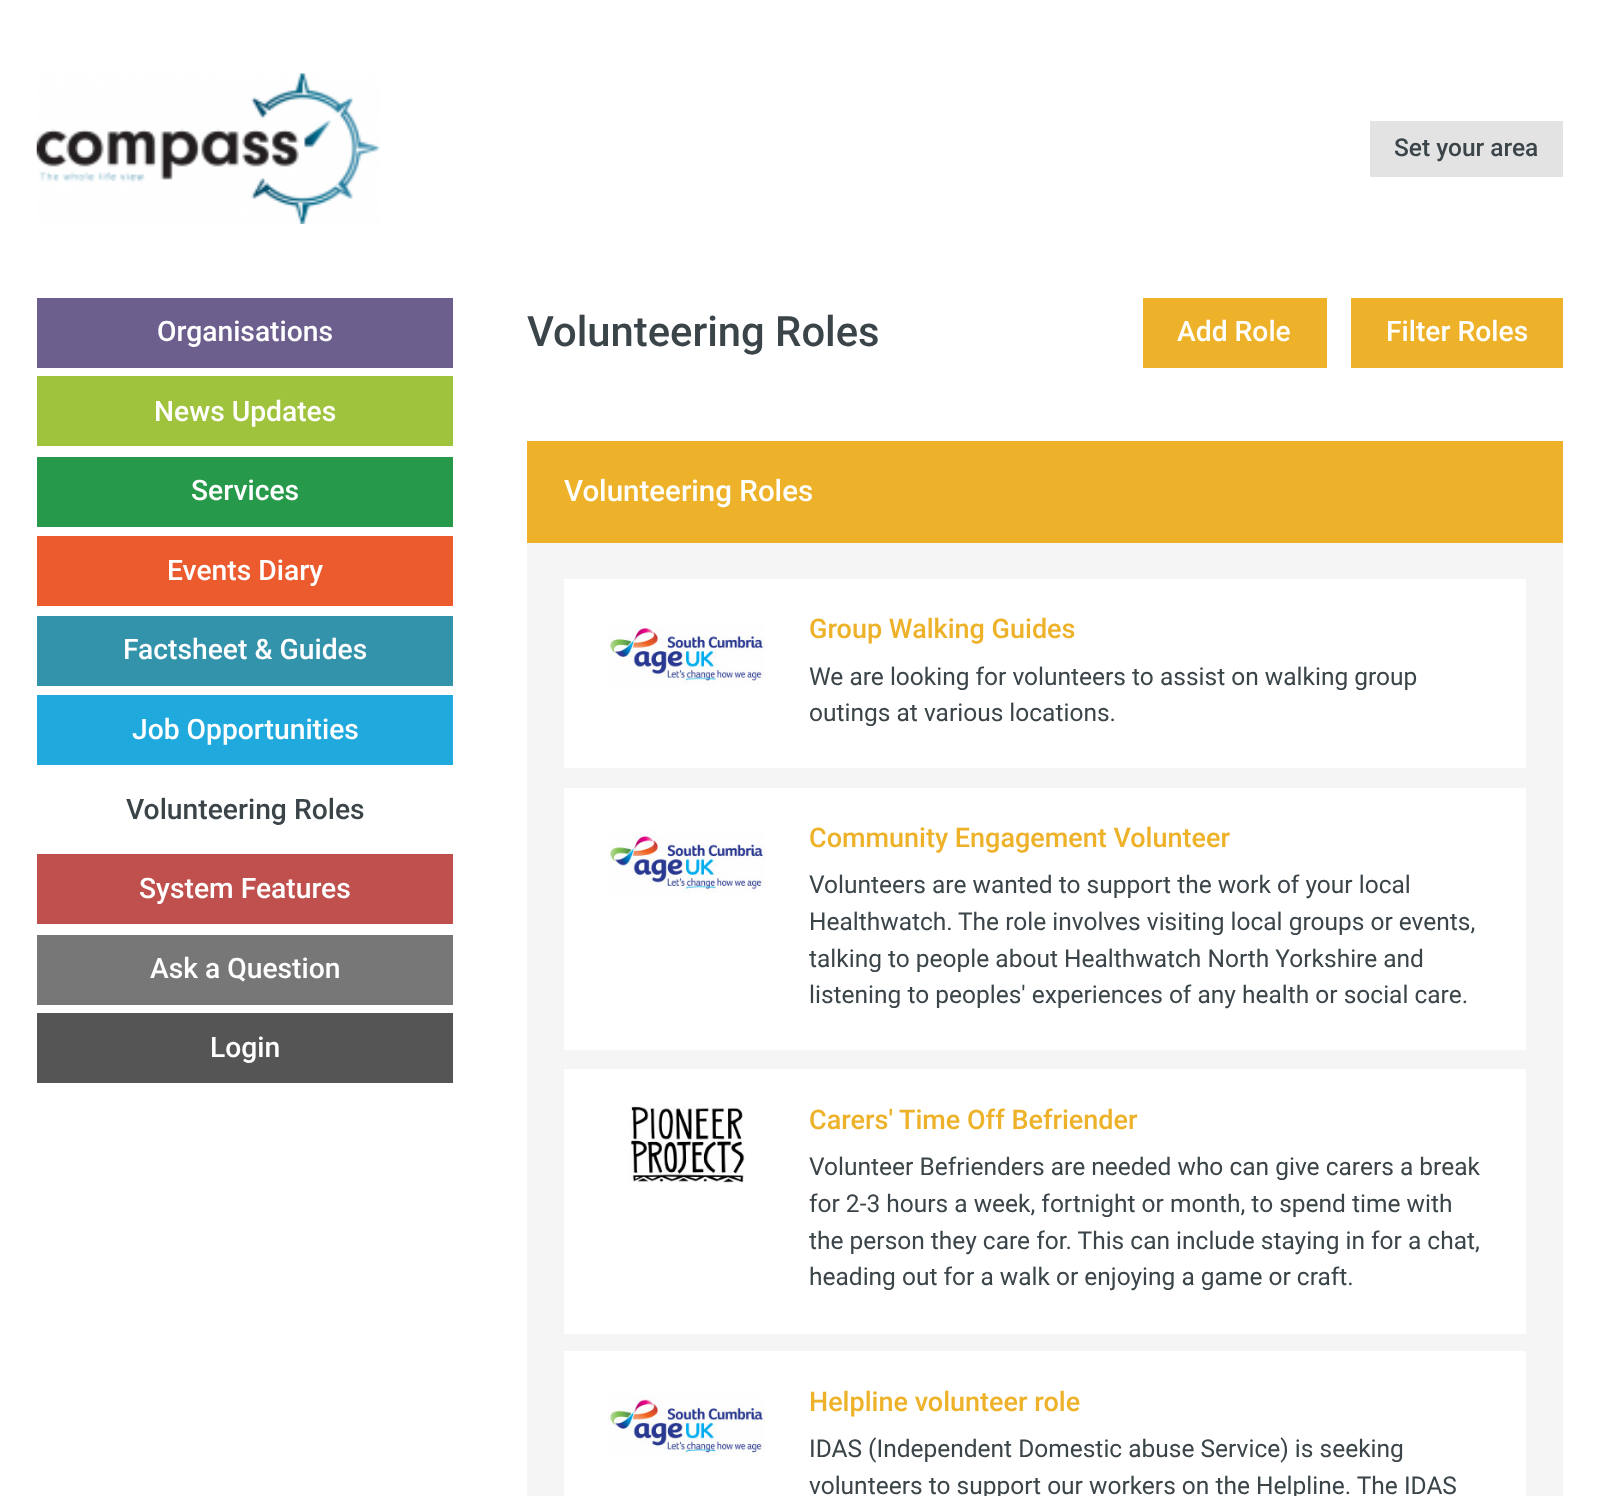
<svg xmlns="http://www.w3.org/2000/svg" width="1599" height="1496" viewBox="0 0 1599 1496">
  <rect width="100%" height="100%" fill="rgb(255,255,255)"/>
  <image x="36" y="73" width="344" height="151" href="pic1.png"/>
  <rect x="1370" y="121" width="193" height="56" fill="rgb(227,227,227)"/>
  <text x="1394" y="156" font-family="Roboto" font-size="24.5" font-weight="500" fill="rgb(59,69,73)">Set your area</text>
  <rect x="37" y="298" width="416" height="70" fill="rgb(108,95,142)"/>
  <text x="157" y="341" font-family="Roboto" font-size="28.25" font-weight="500" fill="rgb(255,255,255)">Organisations</text>
  <rect x="37" y="376" width="416" height="70" fill="rgb(160,195,62)"/>
  <text x="154" y="421" font-family="Roboto" font-size="28.25" font-weight="500" fill="rgb(255,255,255)">News Updates</text>
  <rect x="37" y="457" width="416" height="70" fill="rgb(39,153,74)"/>
  <text x="191" y="500" font-family="Roboto" font-size="28.25" font-weight="500" fill="rgb(255,255,255)">Services</text>
  <rect x="37" y="536" width="416" height="70" fill="rgb(236,91,46)"/>
  <text x="167" y="580" font-family="Roboto" font-size="28.25" font-weight="500" fill="rgb(255,255,255)">Events Diary</text>
  <rect x="37" y="616" width="416" height="70" fill="rgb(50,147,171)"/>
  <text x="123" y="659" font-family="Roboto" font-size="28.25" font-weight="500" fill="rgb(255,255,255)">Factsheet &amp; Guides</text>
  <rect x="37" y="695" width="416" height="70" fill="rgb(32,169,220)"/>
  <text x="132" y="739" font-family="Roboto" font-size="28.25" font-weight="500" fill="rgb(255,255,255)">Job Opportunities</text>
  <text x="126" y="819" font-family="Roboto" font-size="28.25" font-weight="500" fill="rgb(59,69,73)">Volunteering Roles</text>
  <rect x="37" y="854" width="416" height="70" fill="rgb(192,80,77)"/>
  <text x="139" y="898" font-family="Roboto" font-size="28.25" font-weight="500" fill="rgb(255,255,255)">System Features</text>
  <rect x="37" y="935" width="416" height="70" fill="rgb(119,119,119)"/>
  <text x="150" y="978" font-family="Roboto" font-size="28.25" font-weight="500" fill="rgb(255,255,255)">Ask a Question</text>
  <rect x="37" y="1013" width="416" height="70" fill="rgb(85,85,85)"/>
  <text x="210" y="1057" font-family="Roboto" font-size="28.25" font-weight="500" fill="rgb(255,255,255)">Login</text>
  <text x="527" y="346" font-family="Roboto" font-size="41.75" font-weight="500" fill="rgb(59,69,73)">Volunteering Roles</text>
  <rect x="1143" y="298" width="184" height="70" fill="rgb(237,178,41)"/>
  <text x="1177" y="341" font-family="Roboto" font-size="28.25" font-weight="500" fill="rgb(255,255,255)">Add Role</text>
  <rect x="1351" y="298" width="212" height="70" fill="rgb(237,178,41)"/>
  <text x="1386" y="341" font-family="Roboto" font-size="28.25" font-weight="500" fill="rgb(255,255,255)">Filter Roles</text>
  <rect x="527" y="441" width="1036" height="102" fill="rgb(237,178,41)"/>
  <text x="564" y="501" font-family="Roboto" font-size="29.5" font-weight="500" fill="rgb(255,255,255)">Volunteering Roles</text>
  <rect x="527" y="543" width="1036" height="953" fill="rgb(245,245,245)"/>
  <rect x="564" y="579" width="962" height="189" fill="rgb(255,255,255)"/>
  <image x="607" y="623" width="158" height="62" href="pic2.png"/>
  <text x="809" y="638" font-family="Roboto" font-size="27" font-weight="500" fill="rgb(237,178,41)">Group Walking Guides</text>
  <g font-family="Roboto" font-size="24.5" fill="rgb(59,69,73)">
    <text>
      <tspan x="809" y="685">We are looking for volunteers to assist on walking group</tspan>
      <tspan x="809" y="721">outings at various locations.</tspan>
    </text>
  </g>
  <rect x="564" y="788" width="962" height="262" fill="rgb(255,255,255)"/>
  <image x="607" y="831" width="158" height="62" href="pic3.png"/>
  <text x="809" y="847" font-family="Roboto" font-size="27" font-weight="500" fill="rgb(237,178,41)">Community Engagement Volunteer</text>
  <g font-family="Roboto" font-size="24.5" fill="rgb(59,69,73)">
    <text>
      <tspan x="809" y="893">Volunteers are wanted to support the work of your local</tspan>
      <tspan x="809" y="930">Healthwatch.</tspan>
    </text>
    <text x="958" y="930">The role involves visiting local groups or events,</text>
    <text>
      <tspan x="809" y="967">talking to people about Healthwatch North Yorkshire and</tspan>
      <tspan x="809" y="1003">listening to peoples' experiences of any health or social care.</tspan>
    </text>
  </g>
  <rect x="564" y="1069" width="962" height="265" fill="rgb(255,255,255)"/>
  <image x="629" y="1106" width="116" height="77" href="pic4.png"/>
  <text x="809" y="1129" font-family="Roboto" font-size="27" font-weight="500" fill="rgb(237,178,41)">Carers' Time Off Befriender</text>
  <g font-family="Roboto" font-size="24.5" fill="rgb(59,69,73)">
    <text>
      <tspan x="809" y="1175">Volunteer Befrienders are needed who can give carers a break</tspan>
      <tspan x="809" y="1212">for 2-3 hours a week, fortnight or month, to spend time with</tspan>
      <tspan x="809" y="1249">the person they care for. This can include staying in for a chat,</tspan>
      <tspan x="809" y="1285">heading out for a walk or enjoying a game or craft.</tspan>
    </text>
  </g>
  <rect x="564" y="1351" width="962" height="145" fill="rgb(255,255,255)"/>
  <image x="607" y="1395" width="158" height="61" href="pic5.png"/>
  <text x="809" y="1411" font-family="Roboto" font-size="27" font-weight="500" fill="rgb(237,178,41)">Helpline volunteer role</text>
  <g font-family="Roboto" font-size="24.5" fill="rgb(59,69,73)">
    <text>
      <tspan x="809" y="1457">IDAS (Independent Domestic abuse Service) is seeking</tspan>
      <tspan x="809" y="1494">volunteers to support our workers on the Helpline. The IDAS</tspan>
    </text>
  </g>
</svg>
